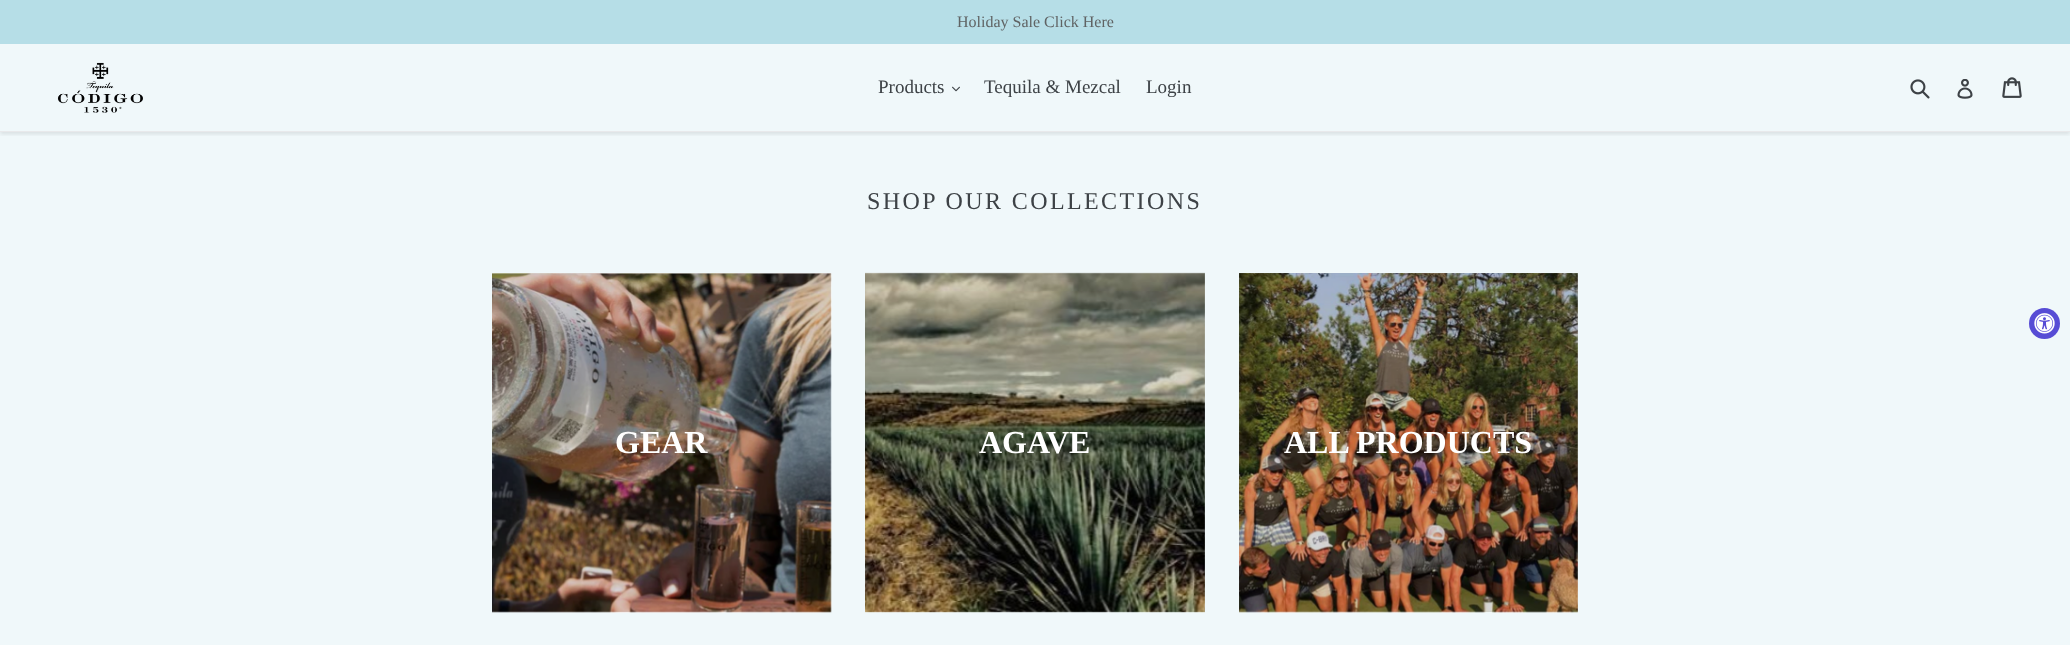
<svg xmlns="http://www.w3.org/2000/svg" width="2070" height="645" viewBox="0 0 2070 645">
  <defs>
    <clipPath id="clip1"><rect x="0" y="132" width="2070" height="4"/></clipPath>
  </defs>
  <rect width="100%" height="100%" fill="rgb(240,248,250)"/>
  <g clip-path="url(#clip1)">
    <rect x="0" y="2" width="2070" height="132" fill="rgba(0,0,0,0.1)" filter="blur(2px)"/>
  </g>
  <rect x="0" y="0" width="2070" height="44" fill="rgb(182,222,231)"/>
  <text x="957" y="27" font-family="Liberation Serif" font-size="16" fill="rgb(96,99,100)">Holiday Sale Click Here</text>
  <rect x="0" y="131" width="2070" height="1" fill="rgb(232,233,235)"/>
  <image x="57" y="62" width="86" height="51" href="pic1.png"/>
  <text x="878" y="93" font-family="Liberation Serif" font-size="19" fill="rgb(61,66,70)">Products</text>
  <image x="952" y="86" width="8" height="6" href="pic2.png"/>
  <g font-family="Liberation Serif" font-size="19" fill="rgb(61,66,70)">
    <text x="984" y="93">Tequila &amp; Mezcal</text>
    <text x="1146" y="93">Login</text>
  </g>
  <image x="1910" y="79" width="20" height="20" href="pic3.png"/>
  <image x="1957" y="79" width="16" height="20" href="pic4.png"/>
  <image x="2002" y="77" width="20" height="21" href="pic5.png"/>
  <text x="867" y="209" font-family="Liberation Serif" font-size="24" letter-spacing="2.4" fill="rgb(61,66,70)">SHOP OUR COLLECTIONS</text>
  <rect x="492" y="273" width="339" height="339" fill="rgb(207,207,207)"/>
  <image x="492" y="273" width="340" height="340" href="pic6.png"/>
  <text x="615" y="453" font-family="Liberation Serif" font-size="32" font-weight="bold" fill="rgb(255,255,255)">GEAR</text>
  <image x="865" y="272" width="340" height="341" href="pic7.png"/>
  <text x="979" y="453" font-family="Liberation Serif" font-size="32" font-weight="bold" fill="rgb(255,255,255)">AGAVE</text>
  <rect x="1239" y="273" width="339" height="339" fill="rgb(207,207,207)"/>
  <image x="1239" y="273" width="339" height="340" href="pic8.png"/>
  <text x="1284" y="453" font-family="Liberation Serif" font-size="32" font-weight="bold" fill="rgb(255,255,255)">ALL PRODUCTS</text>
  <circle cx="2044.5" cy="323.5" r="15.5" fill="rgb(87,76,213)"/>
  <image x="2034" y="313" width="21" height="21" href="pic9.png"/>
</svg>
